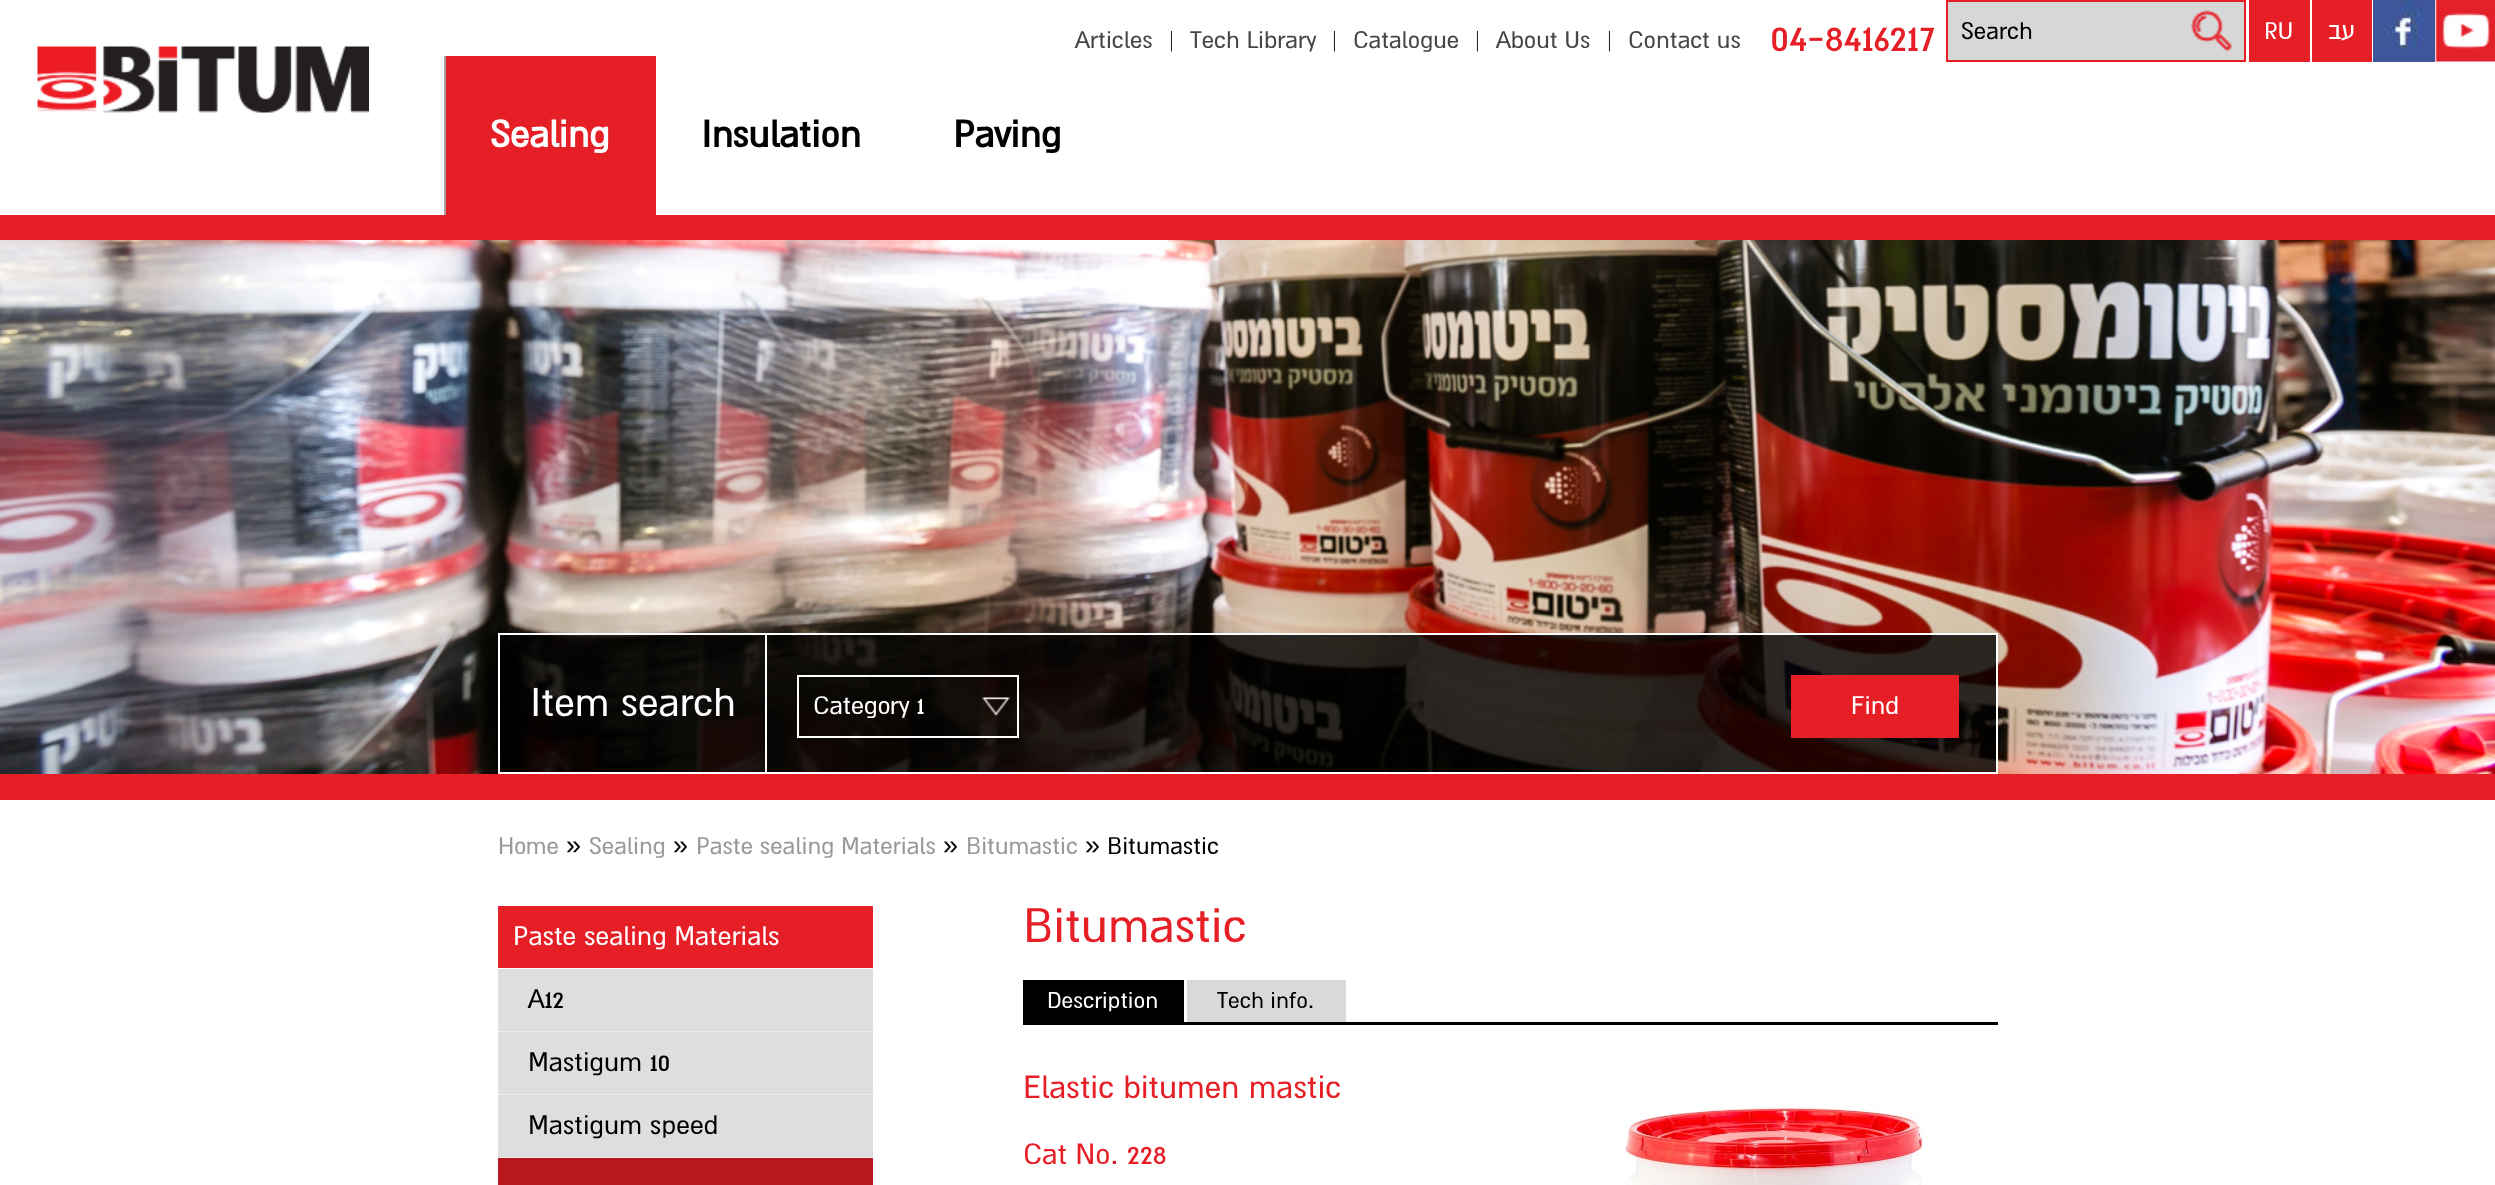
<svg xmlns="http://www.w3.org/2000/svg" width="2495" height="1185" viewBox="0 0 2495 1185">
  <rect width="100%" height="100%" fill="rgb(255,255,255)"/>
  <rect x="0" y="215" width="2495" height="25" fill="rgb(230,30,38)"/>
  <text x="1075" y="48" font-family="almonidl" font-size="27" fill="rgb(70,70,70)">Articles</text>
  <text x="1168" y="48" font-family="almonidl" font-size="27" fill="rgb(42,42,42)">|</text>
  <text x="1190" y="48" font-family="almonidl" font-size="27" fill="rgb(70,70,70)">Tech Library</text>
  <text x="1331" y="48" font-family="almonidl" font-size="27" fill="rgb(42,42,42)">|</text>
  <text x="1353" y="48" font-family="almonidl" font-size="27" fill="rgb(70,70,70)">Catalogue</text>
  <text x="1474" y="48" font-family="almonidl" font-size="27" fill="rgb(42,42,42)">|</text>
  <text x="1496" y="48" font-family="almonidl" font-size="27" fill="rgb(70,70,70)">About Us</text>
  <text x="1606" y="48" font-family="almonidl" font-size="27" fill="rgb(42,42,42)">|</text>
  <text x="1628" y="48" font-family="almonidl" font-size="27" fill="rgb(70,70,70)">Contact us</text>
  <text x="1770" y="51" font-family="almonidl" font-size="45" fill="rgb(230,30,38)">04-8416217</text>
  <rect x="1947" y="1" width="298" height="60" fill="rgb(215,215,215)" stroke="rgb(230,30,38)" stroke-width="2"/>
  <text x="1961" y="39" font-family="almonidl" font-size="27" fill="rgb(0,0,0)">Search</text>
  <image x="2191" y="10" width="42" height="42" href="pic1.png"/>
  <rect x="2249" y="0" width="61" height="62" fill="rgb(230,30,38)"/>
  <text x="2264" y="39" font-family="almonidl" font-size="27" fill="rgb(255,255,255)">RU</text>
  <rect x="2312" y="0" width="60" height="62" fill="rgb(230,30,38)"/>
  <text x="2355" y="39" font-family="almonidl" font-size="27" direction="rtl" fill="rgb(255,255,255)">עב</text>
  <image x="2373" y="0" width="62" height="62" href="pic2.png"/>
  <image x="2435" y="0" width="60" height="62" href="pic3.png"/>
  <image x="37" y="46" width="332" height="67" href="pic4.png"/>
  <rect x="444" y="56" width="2" height="159" fill="rgb(161,161,161)"/>
  <rect x="446" y="56" width="210" height="159" fill="rgb(230,30,38)"/>
  <text x="490" y="147" font-family="almonidl" font-size="42" font-weight="bold" fill="rgb(255,255,255)">Sealing</text>
  <g font-family="almonidl" font-size="42" font-weight="bold" fill="rgb(0,0,0)">
    <text x="701" y="147">Insulation</text>
    <text x="953" y="147">Paving</text>
  </g>
  <rect x="0" y="774" width="2495" height="26" fill="rgb(230,30,38)"/>
  <image x="0" y="240" width="2495" height="534" href="pic5.png"/>
  <rect x="499" y="634" width="1498" height="139" fill="rgba(0,0,0,0.8)" stroke="rgb(255,255,255)" stroke-width="2"/>
  <rect x="765" y="635" width="2" height="138" fill="rgb(255,255,255)"/>
  <text x="530" y="716" font-family="almonidl" font-size="45" fill="rgb(255,255,255)">Item search</text>
  <image x="982" y="697" width="28" height="19" href="pic6.png"/>
  <rect x="798" y="676" width="220" height="61" fill="none" stroke="rgb(255,255,255)" stroke-width="2"/>
  <text x="813" y="714" font-family="almonidl" font-size="28.5" fill="rgb(255,255,255)">Category 1</text>
  <rect x="1791" y="675" width="168" height="63" fill="rgb(230,30,38)"/>
  <text x="1851" y="714" font-family="almonidl" font-size="28.5" fill="rgb(255,255,255)">Find</text>
  <text x="498" y="854" font-family="almonidl" font-size="27" fill="rgb(153,153,153)">Home</text>
  <text x="566" y="854" font-family="Liberation Sans" font-size="27" fill="rgb(0,0,0)">»</text>
  <text x="589" y="854" font-family="almonidl" font-size="27" fill="rgb(153,153,153)">Sealing</text>
  <text x="673" y="854" font-family="Liberation Sans" font-size="27" fill="rgb(0,0,0)">»</text>
  <text x="696" y="854" font-family="almonidl" font-size="27" fill="rgb(153,153,153)">Paste sealing Materials</text>
  <text x="943" y="854" font-family="Liberation Sans" font-size="27" fill="rgb(0,0,0)">»</text>
  <text x="966" y="854" font-family="almonidl" font-size="27" fill="rgb(153,153,153)">Bitumastic</text>
  <text x="1085" y="854" font-family="Liberation Sans" font-size="27" fill="rgb(0,0,0)">»</text>
  <text x="1107" y="854" font-family="almonidl" font-size="27" fill="rgb(0,0,0)">Bitumastic</text>
  <rect x="498" y="906" width="375" height="62" fill="rgb(230,30,38)"/>
  <text x="513" y="945" font-family="almonidl" font-size="30" fill="rgb(255,255,255)">Paste sealing Materials</text>
  <rect x="498" y="969" width="375" height="62" fill="rgb(222,222,222)"/>
  <rect x="498" y="1031" width="375" height="1" fill="rgb(238,238,238)"/>
  <text x="528" y="1008" font-family="almonidl" font-size="30" fill="rgb(0,0,0)">A12</text>
  <rect x="498" y="1032" width="375" height="62" fill="rgb(222,222,222)"/>
  <rect x="498" y="1094" width="375" height="1" fill="rgb(238,238,238)"/>
  <text x="528" y="1071" font-family="almonidl" font-size="30" fill="rgb(0,0,0)">Mastigum 10</text>
  <rect x="498" y="1095" width="375" height="62" fill="rgb(222,222,222)"/>
  <rect x="498" y="1157" width="375" height="1" fill="rgb(238,238,238)"/>
  <text x="528" y="1134" font-family="almonidl" font-size="30" fill="rgb(0,0,0)">Mastigum speed</text>
  <rect x="498" y="1158" width="375" height="27" fill="rgb(183,24,31)"/>
  <text x="1023" y="942" font-family="almonidl" font-size="54" fill="rgb(230,30,38)">Bitumastic</text>
  <rect x="1023" y="1022" width="975" height="3" fill="rgb(0,0,0)"/>
  <rect x="1023" y="980" width="161" height="42" fill="rgb(0,0,0)"/>
  <text x="1047" y="1008" font-family="almonidl" font-size="25.5" fill="rgb(255,255,255)">Description</text>
  <rect x="1187" y="980" width="159" height="42" fill="rgb(217,217,217)"/>
  <text x="1217" y="1008" font-family="almonidl" font-size="25.5" fill="rgb(0,0,0)">Tech info.</text>
  <text x="1023" y="1098" font-family="almonidl" font-size="36" fill="rgb(230,30,38)">Elastic bitumen mastic</text>
  <text x="1023" y="1164" font-family="almonidl" font-size="33" fill="rgb(230,30,38)">Cat No. 228</text>
  <image x="1624" y="1105" width="304" height="80" href="pic7.png"/>
</svg>
